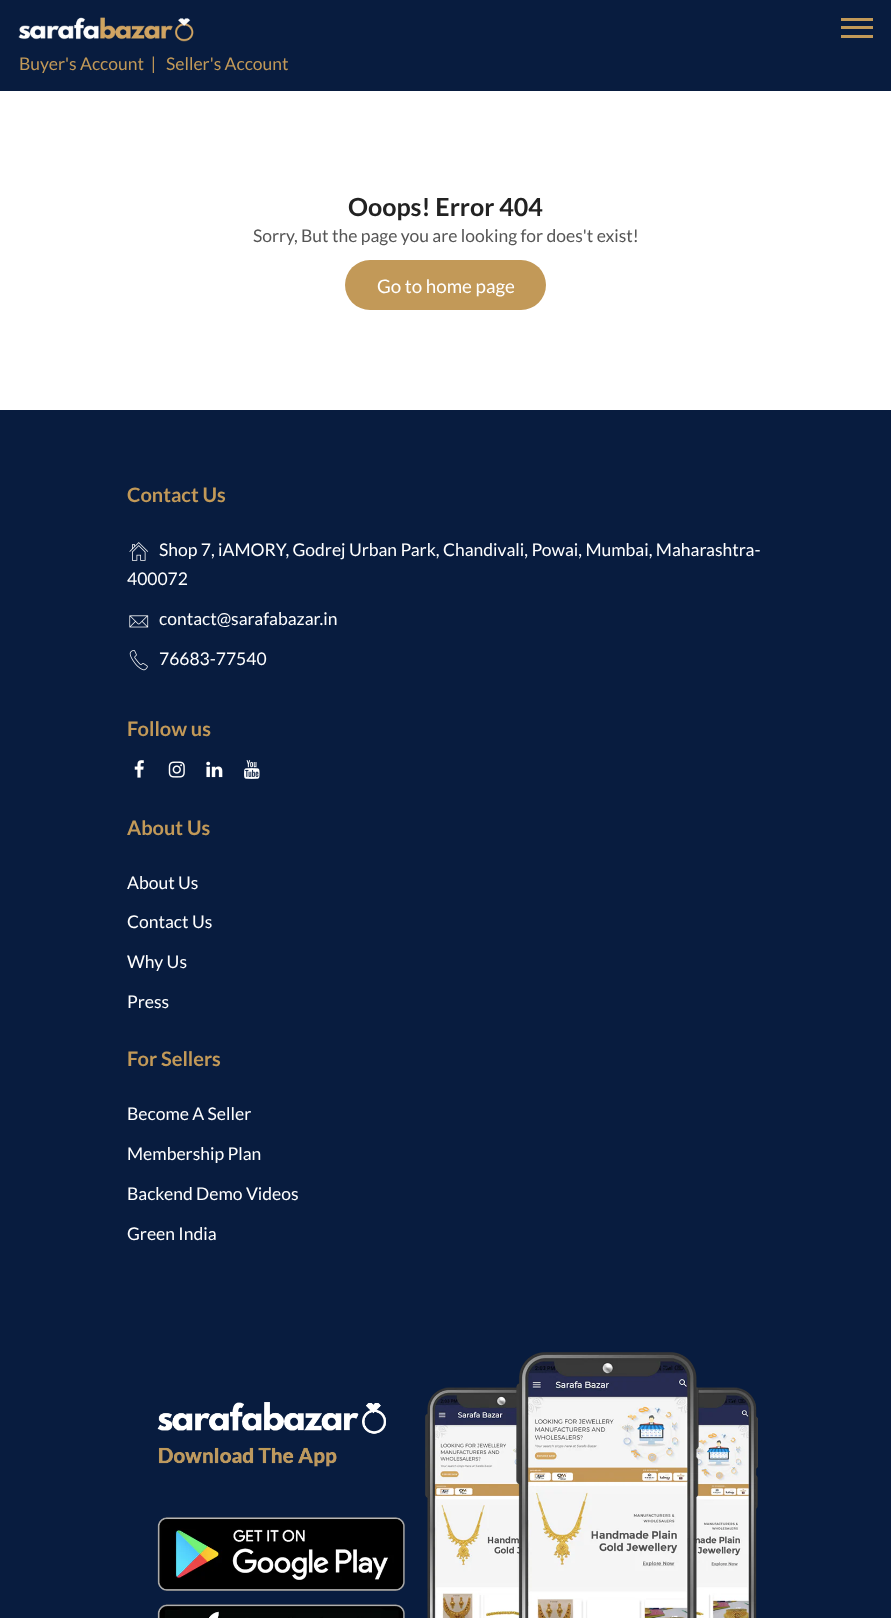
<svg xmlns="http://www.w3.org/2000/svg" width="891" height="1618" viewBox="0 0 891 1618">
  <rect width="100%" height="100%" fill="rgb(255,255,255)"/>
  <rect x="0" y="0" width="891" height="91" fill="rgb(8,28,63)"/>
  <image x="18" y="17" width="176" height="25" href="pic1.png"/>
  <rect x="841" y="18" width="32" height="3" fill="rgb(194,153,88)"/>
  <rect x="841" y="26" width="32" height="3" fill="rgb(194,153,88)"/>
  <rect x="841" y="35" width="32" height="3" fill="rgb(194,153,88)"/>
  <g font-family="Lato" font-size="17.5" fill="rgb(194,153,88)">
    <text x="19" y="70" xml:space="preserve">Buyer's Account  |</text>
    <text x="166" y="70">Seller's Account</text>
  </g>
  <text x="348" y="216" font-family="Lato" font-size="25" font-weight="bold" fill="rgb(34,34,34)">Ooops! Error 404</text>
  <text x="253" y="242" font-family="Lato" font-size="17.5" fill="rgb(85,85,85)">Sorry, But the page you are looking for does't exist!</text>
  <rect x="345" y="260" width="201" height="50" rx="25" fill="rgb(194,153,88)"/>
  <text x="377" y="293" font-family="Lato" font-size="18.75" fill="rgb(255,255,255)">Go to home page</text>
  <rect x="0" y="410" width="891" height="1208" fill="rgb(8,28,63)"/>
  <text x="127" y="502" font-family="Lato" font-size="20" font-weight="bold" fill="rgb(194,153,88)">Contact Us</text>
  <image x="129" y="542" width="20" height="19" href="pic2.png"/>
  <g font-family="Lato" font-size="17.5" fill="rgb(255,255,255)">
    <text x="159" y="556">Shop 7, iAMORY, Godrej Urban Park, Chandivali, Powai, Mumbai, Maharashtra-</text>
    <text x="127" y="585">400072</text>
  </g>
  <image x="129" y="615" width="20" height="13" href="pic3.png"/>
  <text x="159" y="625" font-family="Lato" font-size="17.5" fill="rgb(255,255,255)">contact@sarafabazar.in</text>
  <image x="129" y="650" width="19" height="21" href="pic4.png"/>
  <text x="159" y="665" font-family="Lato" font-size="17.5" fill="rgb(255,255,255)">76683-77540</text>
  <text x="127" y="736" font-family="Lato" font-size="20" font-weight="bold" fill="rgb(194,153,88)">Follow us</text>
  <image x="134" y="760" width="10" height="18" href="pic5.png"/>
  <image x="168" y="761" width="17" height="17" href="pic6.png"/>
  <image x="206" y="761" width="17" height="17" href="pic7.png"/>
  <image x="244" y="760" width="16" height="19" href="pic8.png"/>
  <text x="127" y="835" font-family="Lato" font-size="20" font-weight="bold" fill="rgb(194,153,88)">About Us</text>
  <g font-family="Lato" font-size="17.5" fill="rgb(255,255,255)">
    <text x="127" y="889">About Us</text>
    <text x="127" y="928">Contact Us</text>
    <text x="127" y="968">Why Us</text>
    <text x="127" y="1008">Press</text>
  </g>
  <text x="127" y="1066" font-family="Lato" font-size="20" font-weight="bold" fill="rgb(194,153,88)">For Sellers</text>
  <g font-family="Lato" font-size="17.5" fill="rgb(255,255,255)">
    <text x="127" y="1120">Become A Seller</text>
    <text x="127" y="1160">Membership Plan</text>
    <text x="127" y="1200">Backend Demo Videos</text>
    <text x="127" y="1240">Green India</text>
  </g>
  <image x="157" y="1352" width="601" height="266" href="pic9.png"/>
</svg>
